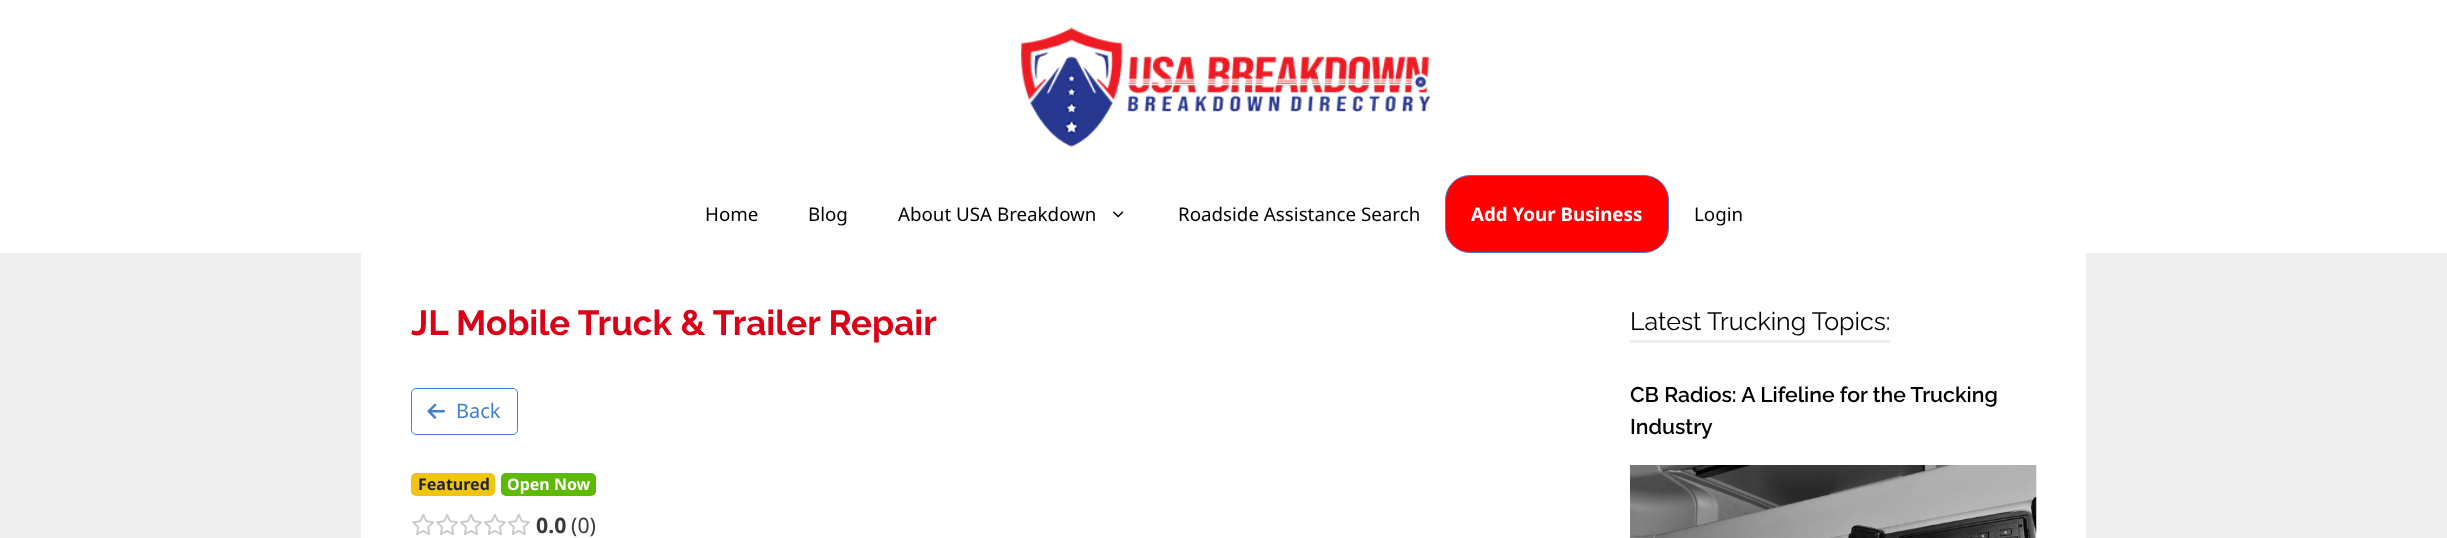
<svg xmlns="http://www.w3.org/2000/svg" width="2447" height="538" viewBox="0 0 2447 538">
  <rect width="100%" height="100%" fill="rgb(239,239,239)"/>
  <rect x="0" y="0" width="2447" height="253" fill="rgb(255,255,255)"/>
  <image x="1021" y="27" width="409" height="120" href="pic1.png"/>
  <g font-family="Noto Sans" font-size="18.75" fill="rgb(0,0,0)">
    <text x="705" y="221">Home</text>
    <text x="808" y="221">Blog</text>
    <text x="898" y="221">About USA Breakdown</text>
  </g>
  <image x="1113" y="211" width="11" height="7" href="pic2.png"/>
  <text x="1178" y="221" font-family="Noto Sans" font-size="18.75" fill="rgb(0,0,0)">Roadside Assistance Search</text>
  <rect x="1445.5" y="175.5" width="223" height="77" rx="24.5" fill="rgb(255,0,0)" stroke="rgb(70,127,207)"/>
  <text x="1471" y="221" font-family="Noto Sans" font-size="18.75" font-weight="bold" fill="rgb(255,255,255)">Add Your Business</text>
  <text x="1694" y="221" font-family="Noto Sans" font-size="18.75" fill="rgb(0,0,0)">Login</text>
  <rect x="361" y="253" width="1725" height="285" fill="rgb(255,255,255)"/>
  <text x="411" y="335" font-family="Raleway" font-size="35" font-weight="bold" fill="rgb(219,0,21)">JL Mobile Truck &amp; Trailer Repair</text>
  <rect x="411.5" y="388.5" width="106" height="46" rx="4.5" fill="none" stroke="rgb(70,127,207)"/>
  <image x="427" y="403" width="18" height="16" href="pic3.png"/>
  <text x="456" y="418" font-family="Noto Sans" font-size="20" fill="rgb(70,127,207)">Back</text>
  <rect x="411" y="473" width="84" height="23" rx="5" fill="rgb(241,196,15)"/>
  <text x="418" y="490" font-family="Noto Sans" font-size="16" font-weight="bold" fill="rgb(33,37,41)">Featured</text>
  <rect x="501" y="473" width="95" height="23" rx="5" fill="rgb(94,186,0)"/>
  <text x="507" y="490" font-family="Noto Sans" font-size="16" font-weight="bold" fill="rgb(255,255,255)">Open Now</text>
  <image x="412" y="514" width="118" height="22" href="pic4.png"/>
  <text x="536" y="533" font-family="Noto Sans" font-size="21.25" font-weight="bold" fill="rgb(58,58,58)">0.0</text>
  <text x="571" y="533" font-family="Noto Sans" font-size="21.25" fill="rgb(58,58,58)">(0)</text>
  <rect x="1630" y="340" width="260" height="3" fill="rgb(238,238,238)"/>
  <text x="1630" y="330" font-family="Raleway" font-size="25" fill="rgb(0,0,0)">Latest Trucking Topics:</text>
  <g font-family="Raleway" font-size="21.25" font-weight="600" fill="rgb(0,0,0)">
    <text>
      <tspan x="1630" y="402">CB Radios: A Lifeline for the Trucking</tspan>
      <tspan x="1630" y="434">Industry</tspan>
    </text>
  </g>
  <image x="1630" y="465" width="407" height="73" href="pic5.png"/>
</svg>
